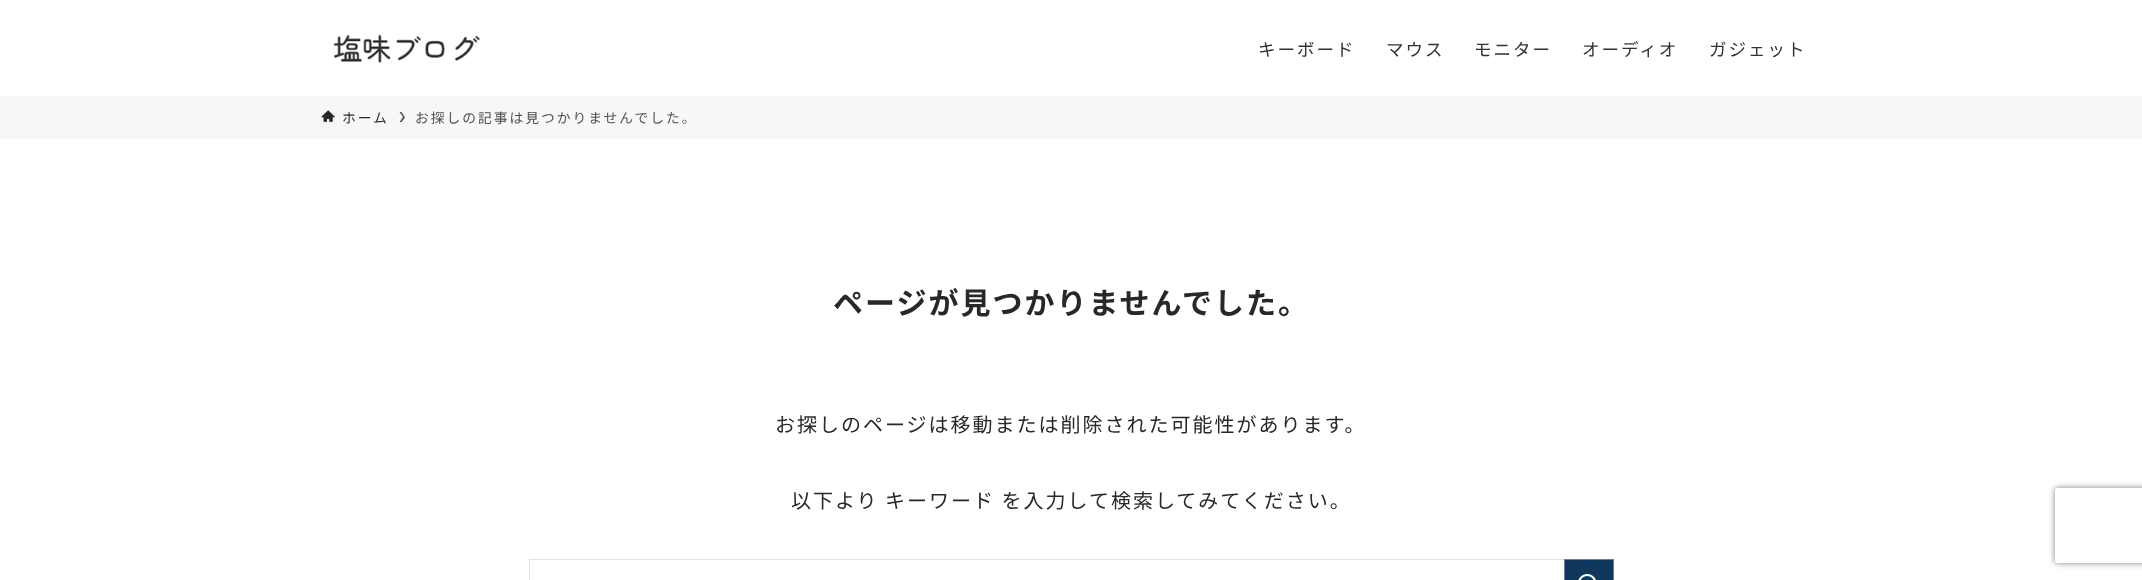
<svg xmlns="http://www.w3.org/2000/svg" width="2142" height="580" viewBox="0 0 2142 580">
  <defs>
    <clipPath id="clip1"><path d="M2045 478H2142V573H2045ZM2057.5 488H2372.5C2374 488 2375 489 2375 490.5V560.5C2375 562 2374 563 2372.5 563H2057.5C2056 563 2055 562 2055 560.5V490.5C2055 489 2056 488 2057.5 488Z" clip-rule="evenodd"/></clipPath>
  </defs>
  <rect width="100%" height="100%" fill="rgb(255,255,255)"/>
  <image x="333" y="34" width="147" height="29" href="pic1.png"/>
  <g font-family="Noto Sans JP" font-size="17.5" letter-spacing="2" fill="rgb(51,51,51)">
    <text x="1258" y="56">キーボード</text>
    <text x="1386" y="56">マウス</text>
    <text x="1474" y="56">モニター</text>
    <text x="1582" y="56">オーディオ</text>
    <text x="1709" y="56">ガジェット</text>
  </g>
  <rect x="0" y="96" width="2142" height="43" fill="rgb(247,247,247)"/>
  <image x="321" y="110" width="14" height="12" href="pic2.png"/>
  <text x="342" y="123" font-family="Noto Sans JP" font-size="13.75" letter-spacing="2" fill="rgb(40,40,40)">ホーム</text>
  <path d="M401.5 112H399.5L403 117L399.5 122H401.5L405 117.5Z" fill="rgb(81,81,81)"/>
  <text x="415" y="123" font-family="Noto Sans JP" font-size="13.75" letter-spacing="2" fill="rgb(81,81,81)">お探しの記事は見つかりませんでした。</text>
  <text x="833" y="314" font-family="Noto Sans JP" font-size="30" font-weight="bold" letter-spacing="2" fill="rgb(40,40,40)">ページが見つかりませんでした。</text>
  <g font-family="Noto Sans JP" font-size="20" letter-spacing="2" fill="rgb(40,40,40)">
    <text x="775" y="432">お探しのページは移動または削除された可能性があります。</text>
    <text x="791" y="508">以下より キーワード を入力して検索してみてください。</text>
  </g>
  <rect x="529.5" y="559.5" width="1084" height="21" fill="none" stroke="rgb(227,227,227)"/>
  <rect x="1564.5" y="559.5" width="49" height="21" fill="rgb(16,55,92)" stroke="rgb(108,127,146)"/>
  <image x="1578" y="574" width="18" height="6" href="pic3.png"/>
  <g clip-path="url(#clip1)">
    <rect x="2055" y="488" width="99" height="75" rx="2.5" fill="rgb(128,128,128)" filter="blur(3px)"/>
  </g>
</svg>
